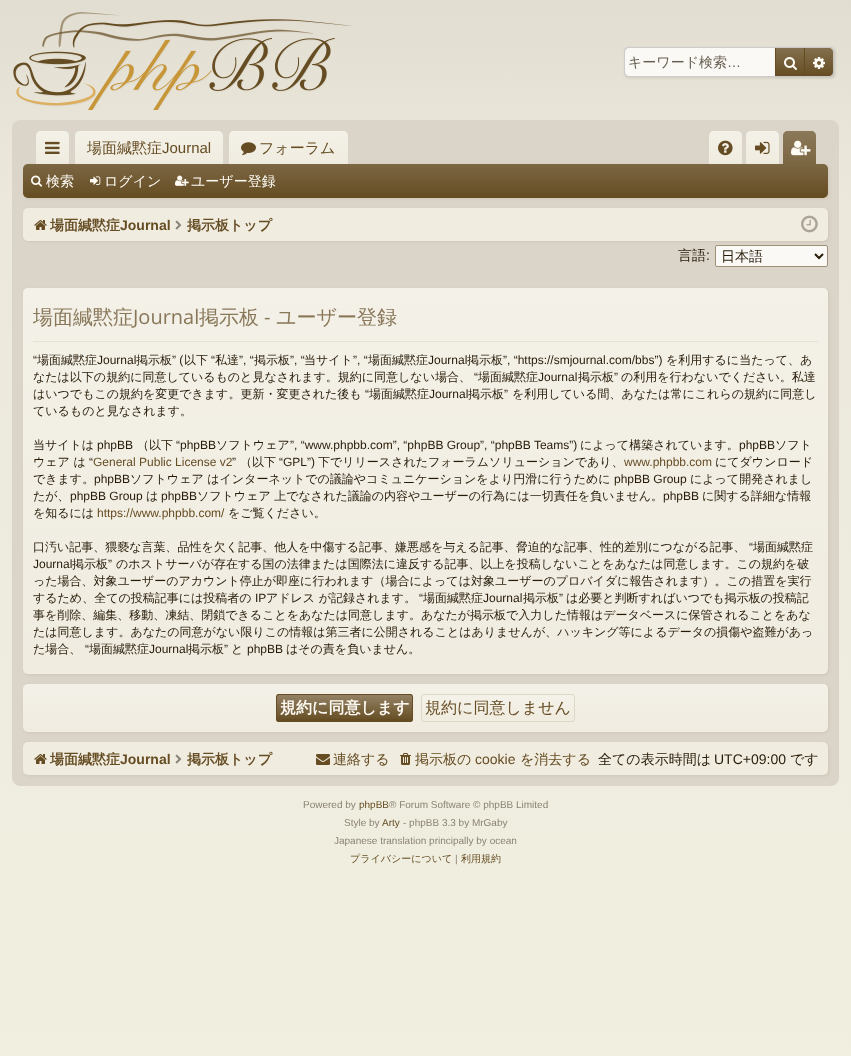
<svg xmlns="http://www.w3.org/2000/svg" width="851" height="1056" viewBox="0 0 851 1056">
  <defs>
    <linearGradient id="g1" gradientUnits="userSpaceOnUse" x1="425" y1="0" x2="426" y2="1056"><stop offset="0" stop-color="rgb(226,221,209)"/><stop offset="0.19" stop-color="rgb(236,233,220)"/><stop offset="1" stop-color="rgb(240,239,224)"/></linearGradient>
    <linearGradient id="g2" gradientUnits="userSpaceOnUse" x1="790" y1="48" x2="790" y2="76"><stop offset="0" stop-color="rgb(132,112,78)"/><stop offset="1" stop-color="rgb(101,76,34)"/></linearGradient>
    <linearGradient id="g3" gradientUnits="userSpaceOnUse" x1="819" y1="48" x2="819" y2="76"><stop offset="0" stop-color="rgb(255,255,255)" stop-opacity="0.2"/><stop offset="1" stop-color="rgb(255,255,255)" stop-opacity="0"/></linearGradient>
    <linearGradient id="g4" gradientUnits="userSpaceOnUse" x1="53" y1="131" x2="53" y2="164"><stop offset="0" stop-color="rgb(255,255,255)" stop-opacity="0.25"/><stop offset="1" stop-color="rgb(255,255,255)" stop-opacity="0"/></linearGradient>
    <linearGradient id="g5" gradientUnits="userSpaceOnUse" x1="149" y1="131" x2="149" y2="164"><stop offset="0" stop-color="rgb(255,255,255)" stop-opacity="0.25"/><stop offset="1" stop-color="rgb(255,255,255)" stop-opacity="0"/></linearGradient>
    <linearGradient id="g6" gradientUnits="userSpaceOnUse" x1="289" y1="131" x2="289" y2="164"><stop offset="0" stop-color="rgb(255,255,255)" stop-opacity="0.25"/><stop offset="1" stop-color="rgb(255,255,255)" stop-opacity="0"/></linearGradient>
    <linearGradient id="g7" gradientUnits="userSpaceOnUse" x1="726" y1="131" x2="726" y2="164"><stop offset="0" stop-color="rgb(255,255,255)" stop-opacity="0.25"/><stop offset="1" stop-color="rgb(255,255,255)" stop-opacity="0"/></linearGradient>
    <linearGradient id="g8" gradientUnits="userSpaceOnUse" x1="763" y1="131" x2="763" y2="164"><stop offset="0" stop-color="rgb(255,255,255)" stop-opacity="0.25"/><stop offset="1" stop-color="rgb(255,255,255)" stop-opacity="0"/></linearGradient>
    <linearGradient id="g9" gradientUnits="userSpaceOnUse" x1="800" y1="131" x2="800" y2="164"><stop offset="0" stop-color="rgb(255,255,255)" stop-opacity="0.25"/><stop offset="1" stop-color="rgb(255,255,255)" stop-opacity="0.15"/></linearGradient>
    <linearGradient id="g10" gradientUnits="userSpaceOnUse" x1="426" y1="164" x2="426" y2="198"><stop offset="0" stop-color="rgb(255,255,255)" stop-opacity="0.15"/><stop offset="1" stop-color="rgb(255,255,255)" stop-opacity="0"/></linearGradient>
    <linearGradient id="g11" gradientUnits="userSpaceOnUse" x1="426" y1="288" x2="426" y2="674"><stop offset="0" stop-color="rgb(255,255,255)" stop-opacity="0.25"/><stop offset="1" stop-color="rgb(255,255,255)" stop-opacity="0"/></linearGradient>
    <linearGradient id="g12" gradientUnits="userSpaceOnUse" x1="426" y1="684" x2="426" y2="732"><stop offset="0" stop-color="rgb(255,255,255)" stop-opacity="0.25"/><stop offset="1" stop-color="rgb(255,255,255)" stop-opacity="0"/></linearGradient>
    <linearGradient id="g13" gradientUnits="userSpaceOnUse" x1="345" y1="695" x2="345" y2="721"><stop offset="0" stop-color="rgb(255,255,255)" stop-opacity="0.3"/><stop offset="1" stop-color="rgb(255,255,255)" stop-opacity="0"/></linearGradient>
    <linearGradient id="g14" gradientUnits="userSpaceOnUse" x1="498" y1="695" x2="498" y2="721"><stop offset="0" stop-color="rgb(255,255,255)" stop-opacity="0.3"/><stop offset="1" stop-color="rgb(255,255,255)" stop-opacity="0"/></linearGradient>
  </defs>
  <rect width="100%" height="100%" fill="rgb(255,255,255)"/>
  <rect x="0" y="0" width="851" height="1056" fill="url(#g1)"/>
  <image x="13" y="12" width="339" height="98" href="pic1.png"/>
  <rect x="625" y="48" width="210" height="30" rx="4" fill="rgba(0,0,0,0.1)" filter="blur(1.5px)"/>
  <rect x="624.5" y="47.5" width="209" height="29" rx="3.5" fill="none" stroke="rgb(204,204,204)"/>
  <path d="M629 48H775V76H629C627 76 625 74 625 72V52C625 50 627 48 629 48Z" fill="rgb(251,249,246)"/>
  <text x="628" y="67" font-family="WenQuanYi Zen Hei" font-size="14" font-weight="500" fill="rgb(103,94,79)">キーワード検索</text>
  <text x="727" y="67" font-family="Liberation Sans" font-size="14" fill="rgb(103,94,79)">…</text>
  <rect x="776" y="49" width="30" height="28" fill="rgba(101,76,34,0.1)" filter="blur(1.5px)"/>
  <rect x="776" y="48" width="28" height="28" fill="url(#g2)"/>
  <rect x="804" y="48" width="1" height="28" fill="rgb(101,76,34)"/>
  <rect x="775" y="48" width="1" height="28" fill="rgb(101,76,34)"/>
  <image x="784" y="57" width="13" height="13" href="pic2.png"/>
  <rect x="806" y="49" width="28" height="28" rx="4" fill="rgba(101,76,34,0.1)" filter="blur(1.5px)"/>
  <path d="M805 48H829C831 48 833 50 833 52V72C833 74 831 76 829 76H805Z" fill="rgb(101,76,34)"/>
  <path d="M805 48H829C831 48 833 50 833 52V72C833 74 831 76 829 76H805Z" fill="url(#g3)"/>
  <image x="813" y="57" width="12" height="12" href="pic3.png"/>
  <rect x="12.5" y="120.5" width="826" height="665" rx="7.5" fill="rgb(219,213,201)" stroke="rgb(219,213,201)"/>
  <path d="M41 131H64C67 131 69 133 69 136V164H36V136C36 133 38 131 41 131Z" fill="rgb(240,236,224)"/>
  <path d="M41 131H64C67 131 69 133 69 136V164H36V136C36 133 38 131 41 131Z" fill="url(#g4)"/>
  <image x="45" y="141" width="15" height="13" href="pic4.png"/>
  <path d="M80 131H218C221 131 223 133 223 136V164H75V136C75 133 77 131 80 131Z" fill="rgb(240,236,224)"/>
  <path d="M80 131H218C221 131 223 133 223 136V164H75V136C75 133 77 131 80 131Z" fill="url(#g5)"/>
  <text x="87" y="153" font-family="WenQuanYi Zen Hei" font-size="15" font-weight="500" fill="rgb(101,76,34)">場面緘黙症</text>
  <text x="162" y="153" font-family="Liberation Sans" font-size="15" fill="rgb(101,76,34)">Journal</text>
  <path d="M234 131H343C346 131 348 133 348 136V164H229V136C229 133 231 131 234 131Z" fill="rgb(240,236,224)"/>
  <path d="M234 131H343C346 131 348 133 348 136V164H229V136C229 133 231 131 234 131Z" fill="url(#g6)"/>
  <image x="241" y="142" width="15" height="14" href="pic5.png"/>
  <text x="259" y="153" font-family="WenQuanYi Zen Hei" font-size="15" font-weight="500" fill="rgb(101,76,34)">フォーラム</text>
  <path d="M714 131H737C740 131 742 133 742 136V164H709V136C709 133 711 131 714 131Z" fill="rgb(240,236,224)"/>
  <path d="M714 131H737C740 131 742 133 742 136V164H709V136C709 133 711 131 714 131Z" fill="url(#g7)"/>
  <image x="718" y="140" width="15" height="16" href="pic6.png"/>
  <path d="M751 131H774C777 131 779 133 779 136V164H746V136C746 133 748 131 751 131Z" fill="rgb(240,236,224)"/>
  <path d="M751 131H774C777 131 779 133 779 136V164H746V136C746 133 748 131 751 131Z" fill="url(#g8)"/>
  <image x="755" y="141" width="15" height="13" href="pic7.png"/>
  <path d="M788 131H811C814 131 816 133 816 136V164H783V136C783 133 785 131 788 131Z" fill="rgb(101,76,34)"/>
  <path d="M788 131H811C814 131 816 133 816 136V164H783V136C783 133 785 131 788 131Z" fill="url(#g9)"/>
  <image x="791" y="140" width="20" height="16" href="pic8.png"/>
  <rect x="24" y="165" width="805" height="34" rx="5" fill="rgba(101,76,34,0.1)" filter="blur(1.5px)"/>
  <rect x="23" y="164" width="805" height="34" rx="5" fill="rgb(101,76,34)"/>
  <rect x="23" y="164" width="805" height="34" rx="5" fill="url(#g10)"/>
  <path d="M785 163H814C815 163 816 164 816 165H783C783 164 784 163 785 163Z" fill="rgb(101,76,34)"/>
  <path d="M785 163H814C815 163 816 164 816 165H783C783 164 784 163 785 163Z" fill="rgba(255,255,255,0.15)"/>
  <image x="31" y="175" width="12" height="12" href="pic9.png"/>
  <text x="46" y="186" font-family="WenQuanYi Zen Hei" font-size="14" font-weight="500" fill="rgb(254,251,245)">検索</text>
  <image x="90" y="176" width="11" height="9" href="pic10.png"/>
  <text x="104" y="186" font-family="WenQuanYi Zen Hei" font-size="14" font-weight="500" fill="rgb(254,251,245)">ログイン</text>
  <image x="175" y="175" width="14" height="11" href="pic11.png"/>
  <text x="191" y="186" font-family="WenQuanYi Zen Hei" font-size="14" font-weight="500" fill="rgb(254,251,245)">ユーザー登録</text>
  <rect x="24" y="209" width="805" height="33" rx="5" fill="rgba(101,76,34,0.1)" filter="blur(1.5px)"/>
  <rect x="23" y="208" width="805" height="33" rx="5" fill="rgb(240,236,224)"/>
  <image x="34" y="220" width="13" height="10" href="pic12.png"/>
  <text x="50" y="230" font-family="WenQuanYi Zen Hei" font-size="14" font-weight="bold" fill="rgb(101,76,34)">場面緘黙症</text>
  <text x="120" y="230" font-family="Liberation Sans" font-size="14" font-weight="bold" fill="rgb(101,76,34)">Journal</text>
  <image x="175" y="220" width="7" height="10" href="pic13.png"/>
  <text x="187" y="230" font-family="WenQuanYi Zen Hei" font-size="14" font-weight="bold" fill="rgb(101,76,34)">掲示板トップ</text>
  <image x="801" y="215" width="17" height="18" href="pic14.png"/>
  <text x="678" y="260" font-family="WenQuanYi Zen Hei" font-size="14" font-weight="500" fill="rgb(39,27,8)">言語</text>
  <text x="706" y="260" font-family="Liberation Sans" font-size="14" fill="rgb(39,27,8)">:</text>
  <rect x="715.5" y="245.5" width="112" height="21" rx="1.5" fill="rgb(251,249,246)" stroke="rgb(157,143,120)"/>
  <path d="M815 254L819 258L823 254" fill="none" stroke="rgb(39,27,8)" stroke-width="2"/>
  <text x="721" y="261" font-family="WenQuanYi Zen Hei" font-size="14" font-weight="500" fill="rgb(39,27,8)">日本語</text>
  <rect x="24" y="289" width="805" height="386" rx="5" fill="rgba(101,76,34,0.1)" filter="blur(1.5px)"/>
  <rect x="23" y="288" width="805" height="386" rx="5" fill="rgb(240,236,224)"/>
  <rect x="23" y="288" width="805" height="386" rx="5" fill="url(#g11)"/>
  <rect x="33" y="341" width="785" height="1" fill="rgb(232,225,207)"/>
  <text x="33" y="324" font-family="WenQuanYi Zen Hei" font-size="20" font-weight="500" fill="rgb(137,119,89)">場面緘黙症</text>
  <text x="133" y="324" font-family="Open Sans" font-size="20" fill="rgb(137,119,89)">Journal</text>
  <text x="199" y="324" font-family="WenQuanYi Zen Hei" font-size="20" font-weight="500" fill="rgb(137,119,89)">掲示板</text>
  <text x="264" y="324" font-family="Open Sans" font-size="20" fill="rgb(137,119,89)">-</text>
  <text x="276" y="324" font-family="WenQuanYi Zen Hei" font-size="20" font-weight="500" fill="rgb(137,119,89)">ユーザー登録</text>
  <text x="33" y="364" font-family="Liberation Sans" font-size="12" fill="rgb(39,27,8)">“</text>
  <text x="37" y="364" font-family="WenQuanYi Zen Hei" font-size="12" font-weight="500" fill="rgb(39,27,8)">場面緘黙症</text>
  <text x="97" y="364" font-family="Liberation Sans" font-size="12" fill="rgb(39,27,8)">Journal</text>
  <text x="136" y="364" font-family="WenQuanYi Zen Hei" font-size="12" font-weight="500" fill="rgb(39,27,8)">掲示板</text>
  <text x="172" y="364" font-family="Liberation Sans" font-size="12" fill="rgb(39,27,8)">” (</text>
  <text x="184" y="364" font-family="WenQuanYi Zen Hei" font-size="12" font-weight="500" fill="rgb(39,27,8)">以下</text>
  <text x="211" y="364" font-family="Liberation Sans" font-size="12" fill="rgb(39,27,8)">“</text>
  <text x="215" y="364" font-family="WenQuanYi Zen Hei" font-size="12" font-weight="500" fill="rgb(39,27,8)">私達</text>
  <text x="239" y="364" font-family="Liberation Sans" font-size="12" fill="rgb(39,27,8)">”, “</text>
  <text x="254" y="364" font-family="WenQuanYi Zen Hei" font-size="12" font-weight="500" fill="rgb(39,27,8)">掲示板</text>
  <text x="290" y="364" font-family="Liberation Sans" font-size="12" fill="rgb(39,27,8)">”, “</text>
  <text x="304" y="364" font-family="WenQuanYi Zen Hei" font-size="12" font-weight="500" fill="rgb(39,27,8)">当サイト</text>
  <text x="353" y="364" font-family="Liberation Sans" font-size="12" fill="rgb(39,27,8)">”, “</text>
  <text x="368" y="364" font-family="WenQuanYi Zen Hei" font-size="12" font-weight="500" fill="rgb(39,27,8)">場面緘黙症</text>
  <text x="428" y="364" font-family="Liberation Sans" font-size="12" fill="rgb(39,27,8)">Journal</text>
  <text x="467" y="364" font-family="WenQuanYi Zen Hei" font-size="12" font-weight="500" fill="rgb(39,27,8)">掲示板</text>
  <text x="503" y="364" font-family="Liberation Sans" font-size="12" fill="rgb(39,27,8)">”, “https://smjournal.com/bbs”)</text>
  <g font-family="WenQuanYi Zen Hei" font-size="12" font-weight="500" fill="rgb(39,27,8)">
    <text x="666" y="364">を利用するに当たって、あ</text>
    <text x="33" y="381">なたは以下の規約に同意しているものと見なされます。規約に同意しない場合、</text>
  </g>
  <text x="474" y="381" font-family="Liberation Sans" font-size="12" fill="rgb(39,27,8)">“</text>
  <text x="478" y="381" font-family="WenQuanYi Zen Hei" font-size="12" font-weight="500" fill="rgb(39,27,8)">場面緘黙症</text>
  <text x="538" y="381" font-family="Liberation Sans" font-size="12" fill="rgb(39,27,8)">Journal</text>
  <text x="578" y="381" font-family="WenQuanYi Zen Hei" font-size="12" font-weight="500" fill="rgb(39,27,8)">掲示板</text>
  <text x="614" y="381" font-family="Liberation Sans" font-size="12" fill="rgb(39,27,8)">”</text>
  <g font-family="WenQuanYi Zen Hei" font-size="12" font-weight="500" fill="rgb(39,27,8)">
    <text x="621" y="381">の利用を行わないでください。私達</text>
    <text x="33" y="398">はいつでもこの規約を変更できます。更新・変更された後も</text>
  </g>
  <text x="365" y="398" font-family="Liberation Sans" font-size="12" fill="rgb(39,27,8)">“</text>
  <text x="369" y="398" font-family="WenQuanYi Zen Hei" font-size="12" font-weight="500" fill="rgb(39,27,8)">場面緘黙症</text>
  <text x="429" y="398" font-family="Liberation Sans" font-size="12" fill="rgb(39,27,8)">Journal</text>
  <text x="468" y="398" font-family="WenQuanYi Zen Hei" font-size="12" font-weight="500" fill="rgb(39,27,8)">掲示板</text>
  <text x="504" y="398" font-family="Liberation Sans" font-size="12" fill="rgb(39,27,8)">”</text>
  <g font-family="WenQuanYi Zen Hei" font-size="12" font-weight="500" fill="rgb(39,27,8)">
    <text x="512" y="398">を利用している間、あなたは常にこれらの規約に同意し</text>
    <text x="33" y="415">ているものと見なされます。</text>
    <text x="33" y="449">当サイトは</text>
  </g>
  <text x="97" y="449" font-family="Liberation Sans" font-size="12" fill="rgb(39,27,8)">phpBB</text>
  <text x="137" y="449" font-family="WenQuanYi Zen Hei" font-size="12" font-weight="500" fill="rgb(39,27,8)">（以下</text>
  <text x="176" y="449" font-family="Liberation Sans" font-size="12" fill="rgb(39,27,8)">“phpBB</text>
  <text x="216" y="449" font-family="WenQuanYi Zen Hei" font-size="12" font-weight="500" fill="rgb(39,27,8)">ソフトウェア</text>
  <text x="290" y="449" font-family="Liberation Sans" font-size="12" fill="rgb(39,27,8)">”, “www.phpbb.com”, “phpBB Group”, “phpBB Teams”)</text>
  <text x="580" y="449" font-family="WenQuanYi Zen Hei" font-size="12" font-weight="500" fill="rgb(39,27,8)">によって構築されています。</text>
  <text x="739" y="449" font-family="Liberation Sans" font-size="12" fill="rgb(39,27,8)">phpBB</text>
  <g font-family="WenQuanYi Zen Hei" font-size="12" font-weight="500" fill="rgb(39,27,8)">
    <text x="775" y="449">ソフト</text>
    <text x="33" y="466">ウェア は</text>
  </g>
  <text x="89" y="466" font-family="Liberation Sans" font-size="12" fill="rgb(39,27,8)">“</text>
  <text x="93" y="466" font-family="Liberation Sans" font-size="12" fill="rgb(101,76,34)">General Public License v2</text>
  <text x="232" y="466" font-family="Liberation Sans" font-size="12" fill="rgb(39,27,8)">”</text>
  <text x="240" y="466" font-family="WenQuanYi Zen Hei" font-size="12" font-weight="500" fill="rgb(39,27,8)">（以下</text>
  <text x="279" y="466" font-family="Liberation Sans" font-size="12" fill="rgb(39,27,8)">“GPL”)</text>
  <text x="318" y="466" font-family="WenQuanYi Zen Hei" font-size="12" font-weight="500" fill="rgb(39,27,8)">下でリリースされたフォーラムソリューションであり、</text>
  <text x="624" y="466" font-family="Liberation Sans" font-size="12" fill="rgb(101,76,34)">www.phpbb.com</text>
  <g font-family="WenQuanYi Zen Hei" font-size="12" font-weight="500" fill="rgb(39,27,8)">
    <text x="715" y="466">にてダウンロード</text>
    <text x="33" y="483">できます。</text>
  </g>
  <text x="94" y="483" font-family="Liberation Sans" font-size="12" fill="rgb(39,27,8)">phpBB</text>
  <text x="130" y="483" font-family="WenQuanYi Zen Hei" font-size="12" font-weight="500" fill="rgb(39,27,8)">ソフトウェア はインターネットでの議論やコミュニケーションをより円滑に行うために</text>
  <text x="614" y="483" font-family="Liberation Sans" font-size="12" fill="rgb(39,27,8)">phpBB Group</text>
  <g font-family="WenQuanYi Zen Hei" font-size="12" font-weight="500" fill="rgb(39,27,8)">
    <text x="690" y="483">によって開発されまし</text>
    <text x="33" y="500">たが、</text>
  </g>
  <text x="70" y="500" font-family="Liberation Sans" font-size="12" fill="rgb(39,27,8)">phpBB Group</text>
  <text x="146" y="500" font-family="WenQuanYi Zen Hei" font-size="12" font-weight="500" fill="rgb(39,27,8)">は</text>
  <text x="161" y="500" font-family="Liberation Sans" font-size="12" fill="rgb(39,27,8)">phpBB</text>
  <text x="197" y="500" font-family="WenQuanYi Zen Hei" font-size="12" font-weight="500" fill="rgb(39,27,8)">ソフトウェア 上でなされた議論の内容やユーザーの行為には一切責任を負いません。</text>
  <text x="663" y="500" font-family="Liberation Sans" font-size="12" fill="rgb(39,27,8)">phpBB</text>
  <g font-family="WenQuanYi Zen Hei" font-size="12" font-weight="500" fill="rgb(39,27,8)">
    <text x="702" y="500">に関する詳細な情報</text>
    <text x="33" y="517">を知るには</text>
  </g>
  <text x="97" y="517" font-family="Liberation Sans" font-size="12" fill="rgb(101,76,34)">https://www.phpbb.com/</text>
  <g font-family="WenQuanYi Zen Hei" font-size="12" font-weight="500" fill="rgb(39,27,8)">
    <text x="228" y="517">をご覧ください。</text>
    <text x="33" y="551">口汚い記事、猥褻な言葉、品性を欠く記事、他人を中傷する記事、嫌悪感を与える記事、脅迫的な記事、性的差別につながる記事、</text>
  </g>
  <text x="749" y="551" font-family="Liberation Sans" font-size="12" fill="rgb(39,27,8)">“</text>
  <text x="753" y="551" font-family="WenQuanYi Zen Hei" font-size="12" font-weight="500" fill="rgb(39,27,8)">場面緘黙症</text>
  <text x="33" y="568" font-family="Liberation Sans" font-size="12" fill="rgb(39,27,8)">Journal</text>
  <text x="72" y="568" font-family="WenQuanYi Zen Hei" font-size="12" font-weight="500" fill="rgb(39,27,8)">掲示板</text>
  <text x="108" y="568" font-family="Liberation Sans" font-size="12" fill="rgb(39,27,8)">”</text>
  <g font-family="WenQuanYi Zen Hei" font-size="12" font-weight="500" fill="rgb(39,27,8)">
    <text x="116" y="568">のホストサーバが存在する国の法律または国際法に違反する記事、以上を投稿しないことをあなたは同意します。この規約を破</text>
    <text>
      <tspan x="33" y="585">った場合、対象ユーザーのアカウント停止が即座に行われます（場合によっては対象ユーザーのプロバイダに報告されます）。この措置を実行</tspan>
      <tspan x="33" y="602">するため、全ての投稿記事には投稿者の</tspan>
    </text>
  </g>
  <text x="255" y="602" font-family="Liberation Sans" font-size="12" fill="rgb(39,27,8)">IP</text>
  <text x="266" y="602" font-family="WenQuanYi Zen Hei" font-size="12" font-weight="500" fill="rgb(39,27,8)">アドレス が記録されます。</text>
  <text x="419" y="602" font-family="Liberation Sans" font-size="12" fill="rgb(39,27,8)">“</text>
  <text x="423" y="602" font-family="WenQuanYi Zen Hei" font-size="12" font-weight="500" fill="rgb(39,27,8)">場面緘黙症</text>
  <text x="483" y="602" font-family="Liberation Sans" font-size="12" fill="rgb(39,27,8)">Journal</text>
  <text x="523" y="602" font-family="WenQuanYi Zen Hei" font-size="12" font-weight="500" fill="rgb(39,27,8)">掲示板</text>
  <text x="559" y="602" font-family="Liberation Sans" font-size="12" fill="rgb(39,27,8)">”</text>
  <g font-family="WenQuanYi Zen Hei" font-size="12" font-weight="500" fill="rgb(39,27,8)">
    <text x="566" y="602">は必要と判断すればいつでも掲示板の投稿記</text>
    <text>
      <tspan x="33" y="619">事を削除、編集、移動、凍結、閉鎖できることをあなたは同意します。あなたが掲示板で入力した情報はデータベースに保管されることをあな</tspan>
      <tspan x="33" y="636">たは同意します。あなたの同意がない限りこの情報は第三者に公開されることはありませんが、ハッキング等によるデータの損傷や盗難があっ</tspan>
      <tspan x="33" y="653">た場合、</tspan>
    </text>
  </g>
  <text x="85" y="653" font-family="Liberation Sans" font-size="12" fill="rgb(39,27,8)">“</text>
  <text x="89" y="653" font-family="WenQuanYi Zen Hei" font-size="12" font-weight="500" fill="rgb(39,27,8)">場面緘黙症</text>
  <text x="149" y="653" font-family="Liberation Sans" font-size="12" fill="rgb(39,27,8)">Journal</text>
  <text x="188" y="653" font-family="WenQuanYi Zen Hei" font-size="12" font-weight="500" fill="rgb(39,27,8)">掲示板</text>
  <text x="224" y="653" font-family="Liberation Sans" font-size="12" fill="rgb(39,27,8)">”</text>
  <text x="231" y="653" font-family="WenQuanYi Zen Hei" font-size="12" font-weight="500" fill="rgb(39,27,8)">と</text>
  <text x="247" y="653" font-family="Liberation Sans" font-size="12" fill="rgb(39,27,8)">phpBB</text>
  <text x="286" y="653" font-family="WenQuanYi Zen Hei" font-size="12" font-weight="500" fill="rgb(39,27,8)">はその責を負いません。</text>
  <rect x="24" y="685" width="805" height="48" rx="5" fill="rgba(101,76,34,0.1)" filter="blur(1.5px)"/>
  <rect x="23" y="684" width="805" height="48" rx="5" fill="rgb(240,236,224)"/>
  <rect x="23" y="684" width="805" height="48" rx="5" fill="url(#g12)"/>
  <rect x="276" y="694" width="137" height="28" rx="3" fill="rgb(101,76,34)"/>
  <rect x="276" y="695" width="137" height="24" fill="url(#g13)"/>
  <rect x="276.5" y="694.5" width="136" height="27" rx="2.5" fill="none" stroke="rgb(101,76,34)"/>
  <text x="280" y="713" font-family="WenQuanYi Zen Hei" font-size="16" font-weight="bold" fill="rgb(254,251,245)">規約に同意します</text>
  <rect x="421" y="694" width="154" height="28" rx="3" fill="rgb(240,236,224)"/>
  <rect x="421" y="695" width="154" height="19" fill="url(#g14)"/>
  <rect x="421.5" y="694.5" width="153" height="27" rx="2.5" fill="none" stroke="rgb(221,215,200)"/>
  <text x="425" y="713" font-family="WenQuanYi Zen Hei" font-size="16" font-weight="500" fill="rgb(101,76,34)">規約に同意しません</text>
  <rect x="24" y="743" width="805" height="33" rx="5" fill="rgba(101,76,34,0.1)" filter="blur(1.5px)"/>
  <rect x="23" y="742" width="805" height="33" rx="5" fill="rgb(240,236,224)"/>
  <image x="34" y="754" width="13" height="10" href="pic12.png"/>
  <text x="50" y="764" font-family="WenQuanYi Zen Hei" font-size="14" font-weight="bold" fill="rgb(101,76,34)">場面緘黙症</text>
  <text x="120" y="764" font-family="Liberation Sans" font-size="14" font-weight="bold" fill="rgb(101,76,34)">Journal</text>
  <image x="175" y="754" width="7" height="10" href="pic13.png"/>
  <text x="187" y="764" font-family="WenQuanYi Zen Hei" font-size="14" font-weight="bold" fill="rgb(101,76,34)">掲示板トップ</text>
  <image x="316" y="754" width="14" height="11" href="pic15.png"/>
  <text x="333" y="764" font-family="WenQuanYi Zen Hei" font-size="14" font-weight="500" fill="rgb(101,76,34)">連絡する</text>
  <image x="400" y="753" width="11" height="12" href="pic16.png"/>
  <text x="415" y="764" font-family="WenQuanYi Zen Hei" font-size="14" font-weight="500" fill="rgb(101,76,34)">掲示板の</text>
  <text x="475" y="764" font-family="Liberation Sans" font-size="14" fill="rgb(101,76,34)">cookie</text>
  <text x="520" y="764" font-family="WenQuanYi Zen Hei" font-size="14" font-weight="500" fill="rgb(101,76,34)">を消去する</text>
  <text x="598" y="764" font-family="WenQuanYi Zen Hei" font-size="14" font-weight="500" fill="rgb(39,27,8)">全ての表示時間は</text>
  <text x="714" y="764" font-family="Liberation Sans" font-size="14" fill="rgb(39,27,8)">UTC+09:00</text>
  <text x="790" y="764" font-family="WenQuanYi Zen Hei" font-size="14" font-weight="500" fill="rgb(39,27,8)">です</text>
  <text x="303" y="808" font-family="Liberation Sans" font-size="10" fill="rgb(139,131,116)">Powered by</text>
  <text x="359" y="808" font-family="Liberation Sans" font-size="10" fill="rgb(101,76,34)">phpBB</text>
  <g font-family="Liberation Sans" font-size="10" fill="rgb(139,131,116)">
    <text x="389" y="808">® Forum Software © phpBB Limited</text>
    <text x="344" y="826">Style by</text>
  </g>
  <text x="382" y="826" font-family="Liberation Sans" font-size="10" fill="rgb(101,76,34)">Arty</text>
  <g font-family="Liberation Sans" font-size="10" fill="rgb(139,131,116)">
    <text x="403" y="826">- phpBB 3.3 by MrGaby</text>
    <text x="334" y="844">Japanese translation principally by ocean</text>
  </g>
  <text x="350" y="862" font-family="WenQuanYi Zen Hei" font-size="10" font-weight="500" fill="rgb(101,76,34)">プライバシーについて</text>
  <text x="455" y="862" font-family="Liberation Sans" font-size="10" fill="rgb(139,131,116)">|</text>
  <text x="461" y="862" font-family="WenQuanYi Zen Hei" font-size="10" font-weight="500" fill="rgb(101,76,34)">利用規約</text>
</svg>
